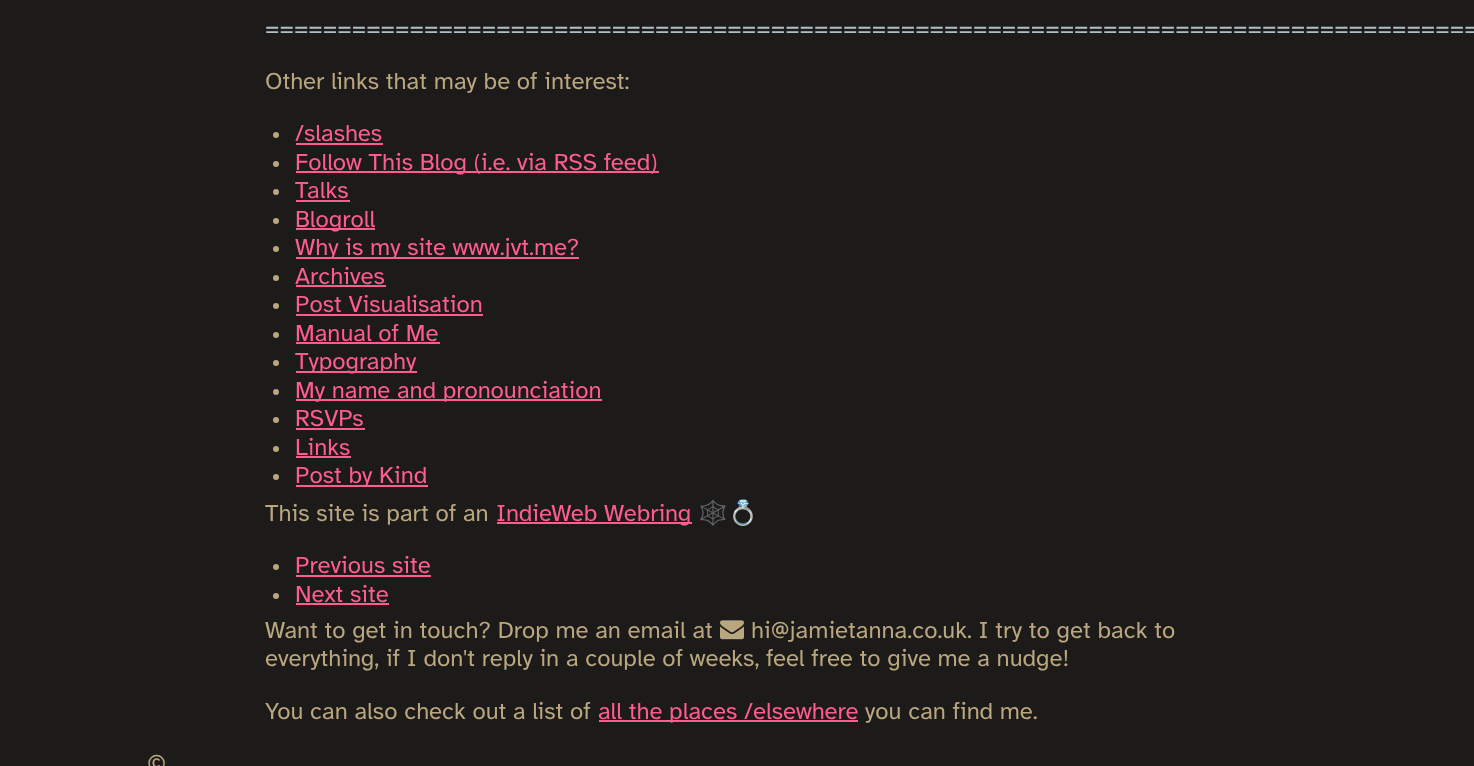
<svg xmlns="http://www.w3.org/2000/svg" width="1474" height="766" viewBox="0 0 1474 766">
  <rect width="100%" height="100%" fill="rgb(28,27,25)"/>
  <text x="265" y="36" font-family="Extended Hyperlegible" font-size="24" fill="rgb(176,190,197)">====================================================================================</text>
  <text x="265" y="89" font-family="Extended Hyperlegible" font-size="24" fill="rgb(186,166,127)">Other links that may be of interest:</text>
  <circle cx="276" cy="135" r="3" fill="rgb(186,166,127)"/>
  <text x="295" y="141" font-family="Extended Hyperlegible" font-size="24" fill="rgb(255,92,143)">/slashes</text>
  <rect x="296" y="143" width="87" height="2" fill="rgb(255,92,143)"/>
  <circle cx="276" cy="164" r="3" fill="rgb(186,166,127)"/>
  <rect x="296" y="171" width="363" height="2" fill="rgb(255,92,143)"/>
  <text x="295" y="170" font-family="Extended Hyperlegible" font-size="24" fill="rgb(255,92,143)">Follow This Blog (i.e. via RSS feed)</text>
  <circle cx="276" cy="192" r="3" fill="rgb(186,166,127)"/>
  <text x="295" y="198" font-family="Extended Hyperlegible" font-size="24" fill="rgb(255,92,143)">Talks</text>
  <rect x="296" y="200" width="54" height="2" fill="rgb(255,92,143)"/>
  <circle cx="276" cy="221" r="3" fill="rgb(186,166,127)"/>
  <rect x="296" y="228" width="79" height="2" fill="rgb(255,92,143)"/>
  <text x="295" y="227" font-family="Extended Hyperlegible" font-size="24" fill="rgb(255,92,143)">Blogroll</text>
  <circle cx="276" cy="249" r="3" fill="rgb(186,166,127)"/>
  <rect x="296" y="257" width="283" height="2" fill="rgb(255,92,143)"/>
  <text x="295" y="255" font-family="Extended Hyperlegible" font-size="24" fill="rgb(255,92,143)">Why is my site www.jvt.me?</text>
  <circle cx="276" cy="278" r="3" fill="rgb(186,166,127)"/>
  <text x="295" y="284" font-family="Extended Hyperlegible" font-size="24" fill="rgb(255,92,143)">Archives</text>
  <rect x="296" y="285" width="90" height="2" fill="rgb(255,92,143)"/>
  <circle cx="276" cy="306" r="3" fill="rgb(186,166,127)"/>
  <text x="295" y="312" font-family="Extended Hyperlegible" font-size="24" fill="rgb(255,92,143)">Post Visualisation</text>
  <rect x="296" y="314" width="187" height="2" fill="rgb(255,92,143)"/>
  <circle cx="276" cy="335" r="3" fill="rgb(186,166,127)"/>
  <text x="295" y="341" font-family="Extended Hyperlegible" font-size="24" fill="rgb(255,92,143)">Manual of Me</text>
  <rect x="296" y="342" width="144" height="2" fill="rgb(255,92,143)"/>
  <circle cx="276" cy="363" r="3" fill="rgb(186,166,127)"/>
  <rect x="296" y="371" width="121" height="2" fill="rgb(255,92,143)"/>
  <text x="295" y="369" font-family="Extended Hyperlegible" font-size="24" fill="rgb(255,92,143)">Typography</text>
  <circle cx="276" cy="392" r="3" fill="rgb(186,166,127)"/>
  <rect x="296" y="399" width="306" height="2" fill="rgb(255,92,143)"/>
  <text x="295" y="398" font-family="Extended Hyperlegible" font-size="24" fill="rgb(255,92,143)">My name and pronounciation</text>
  <circle cx="276" cy="420" r="3" fill="rgb(186,166,127)"/>
  <text x="295" y="426" font-family="Extended Hyperlegible" font-size="24" fill="rgb(255,92,143)">RSVPs</text>
  <rect x="296" y="428" width="69" height="2" fill="rgb(255,92,143)"/>
  <circle cx="276" cy="449" r="3" fill="rgb(186,166,127)"/>
  <text x="295" y="455" font-family="Extended Hyperlegible" font-size="24" fill="rgb(255,92,143)">Links</text>
  <rect x="296" y="456" width="55" height="2" fill="rgb(255,92,143)"/>
  <circle cx="276" cy="477" r="3" fill="rgb(186,166,127)"/>
  <rect x="296" y="485" width="132" height="2" fill="rgb(255,92,143)"/>
  <text x="295" y="483" font-family="Extended Hyperlegible" font-size="24" fill="rgb(255,92,143)">Post by Kind</text>
  <text x="265" y="521" font-family="Extended Hyperlegible" font-size="24" fill="rgb(186,166,127)">This site is part of an</text>
  <rect x="497" y="522" width="195" height="2" fill="rgb(255,92,143)"/>
  <text x="496" y="521" font-family="Extended Hyperlegible" font-size="24" fill="rgb(255,92,143)">IndieWeb Webring</text>
  <text x="698" y="521" font-family="Noto Color Emoji" font-size="24" fill="rgb(186,166,127)">🕸💍</text>
  <circle cx="276" cy="567" r="3" fill="rgb(186,166,127)"/>
  <text x="295" y="573" font-family="Extended Hyperlegible" font-size="24" fill="rgb(255,92,143)">Previous site</text>
  <rect x="296" y="575" width="135" height="2" fill="rgb(255,92,143)"/>
  <circle cx="276" cy="596" r="3" fill="rgb(186,166,127)"/>
  <text x="295" y="602" font-family="Extended Hyperlegible" font-size="24" fill="rgb(255,92,143)">Next site</text>
  <rect x="296" y="603" width="93" height="2" fill="rgb(255,92,143)"/>
  <text x="265" y="638" font-family="Extended Hyperlegible" font-size="24" fill="rgb(186,166,127)">Want to get in touch? Drop me an email at</text>
  <image x="720" y="620" width="24" height="20" href="pic1.png"/>
  <g font-family="Extended Hyperlegible" font-size="24" fill="rgb(186,166,127)">
    <text x="751" y="638">hi@jamietanna.co.uk. I try to get back to</text>
    <text x="265" y="666">everything, if I don't reply in a couple of weeks, feel free to give me a nudge!</text>
    <text x="265" y="719">You can also check out a list of</text>
  </g>
  <rect x="599" y="720" width="259" height="2" fill="rgb(255,92,143)"/>
  <text x="598" y="719" font-family="Extended Hyperlegible" font-size="24" fill="rgb(255,92,143)">all the places /elsewhere</text>
  <g font-family="Extended Hyperlegible" font-size="24" fill="rgb(186,166,127)">
    <text x="865" y="719">you can find me.</text>
    <text x="147" y="771">©</text>
  </g>
</svg>
